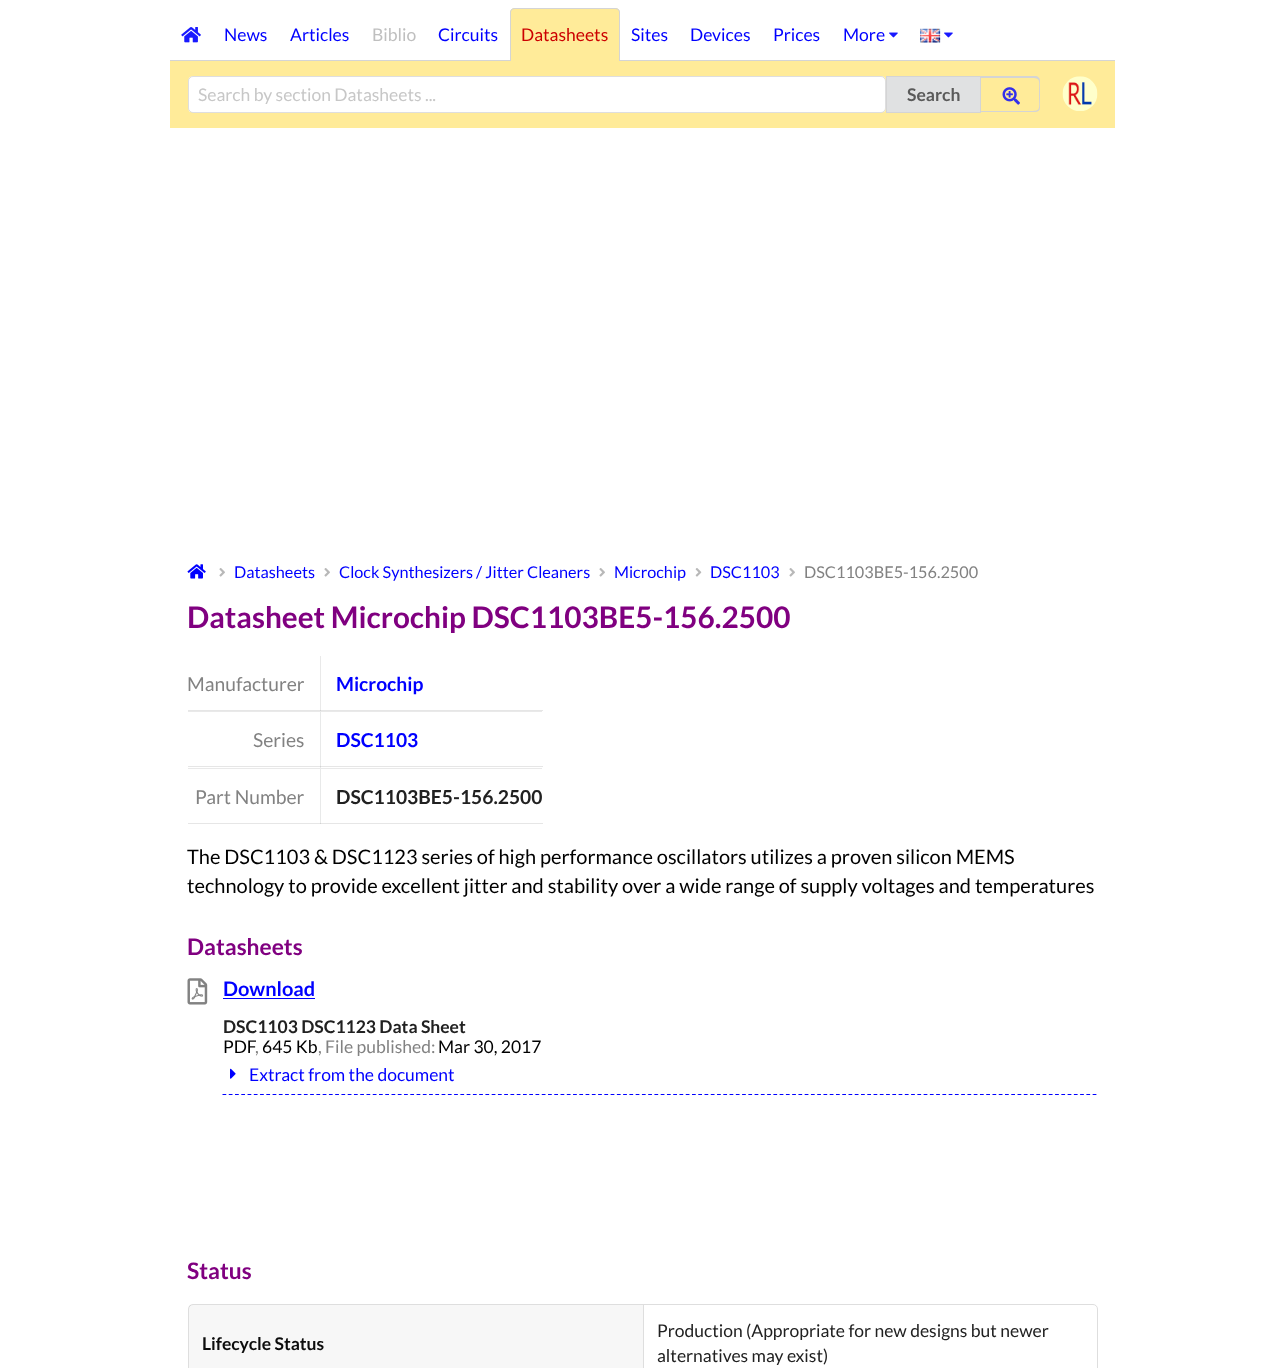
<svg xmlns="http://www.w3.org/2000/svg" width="1283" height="1368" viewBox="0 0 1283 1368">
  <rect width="100%" height="100%" fill="rgb(255,255,255)"/>
  <rect x="320" y="656" width="1" height="55" fill="rgb(233,233,233)"/>
  <rect x="170" y="61" width="945" height="67" fill="rgb(255,235,153)"/>
  <rect x="170" y="60" width="945" height="1" fill="rgb(212,212,213)"/>
  <image x="181" y="27" width="20" height="16" href="pic1.png"/>
  <g font-family="Lato" font-size="17.5" fill="rgb(0,0,255)">
    <text x="224" y="41">News</text>
    <text x="290" y="41">Articles</text>
  </g>
  <text x="372" y="41" font-family="Lato" font-size="17.5" fill="rgb(191,191,191)">Biblio</text>
  <text x="438" y="41" font-family="Lato" font-size="17.5" fill="rgb(0,0,255)">Circuits</text>
  <path d="M515 8H615C618 8 620 10 620 13V61H510V13C510 10 512 8 515 8Z" fill="rgb(255,235,153)"/>
  <path d="M515 8H615C618 8 620 10 620 12V61H510V12C510 10 512 8 515 8ZM515 9H615C617 9 619 10 619 12V61H511V12C511 10 513 9 515 9Z" fill="rgb(212,212,213)" fill-rule="evenodd"/>
  <text x="521" y="41" font-family="Lato" font-size="17.5" fill="rgb(204,0,0)">Datasheets</text>
  <g font-family="Lato" font-size="17.5" fill="rgb(0,0,255)">
    <text x="631" y="41">Sites</text>
    <text x="690" y="41">Devices</text>
    <text x="773" y="41">Prices</text>
    <text x="843" y="41">More</text>
  </g>
  <image x="889" y="32" width="9" height="6" href="pic2.png"/>
  <image x="920" y="28" width="21" height="15" href="pic3.png"/>
  <image x="944" y="32" width="9" height="6" href="pic2.png"/>
  <rect x="188" y="76" width="698" height="37" rx="5" fill="rgb(255,255,255)"/>
  <rect x="188.5" y="76.5" width="697" height="36" rx="4.5" fill="none" stroke="rgba(34,36,38,0.15)"/>
  <text x="198" y="101" font-family="Lato" font-size="17.5" fill="rgb(199,199,199)">Search by section Datasheets ...</text>
  <rect x="886.5" y="76.5" width="94" height="36" fill="rgb(224,225,226)" stroke="rgb(212,212,213)"/>
  <text x="907" y="101" font-family="Lato" font-size="17.5" font-weight="bold" fill="rgb(90,90,90)">Search</text>
  <path d="M981 76H1035C1038 76 1040 78 1040 81V108C1040 110 1038 112 1035 112H981ZM981 78H1026C1042 78 1039 78 1039 94C1039 111 1042 111 1026 111H981Z" fill="rgb(212,212,213)" fill-rule="evenodd"/>
  <image x="1002" y="87" width="18" height="18" href="pic4.png"/>
  <image x="1062" y="76" width="36" height="35" href="pic5.png"/>
  <image x="187" y="564" width="19" height="15" href="pic6.png"/>
  <image x="219" y="568" width="6" height="9" href="pic7.png"/>
  <text x="234" y="578" font-family="Lato" font-size="16.25" fill="rgb(0,0,255)">Datasheets</text>
  <image x="324" y="568" width="6" height="9" href="pic7.png"/>
  <text x="339" y="578" font-family="Lato" font-size="16.25" fill="rgb(0,0,255)">Clock Synthesizers / Jitter Cleaners</text>
  <image x="599" y="568" width="6" height="9" href="pic7.png"/>
  <text x="614" y="578" font-family="Lato" font-size="16.25" fill="rgb(0,0,255)">Microchip</text>
  <image x="695" y="568" width="7" height="9" href="pic8.png"/>
  <text x="710" y="578" font-family="Lato" font-size="16.25" fill="rgb(0,0,255)">DSC1103</text>
  <image x="789" y="568" width="6" height="9" href="pic7.png"/>
  <text x="804" y="578" font-family="Lato" font-size="16.25" fill="rgb(130,130,130)">DSC1103BE5-156.2500</text>
  <text x="187" y="628" font-family="Lato" font-size="29.75" font-weight="bold" fill="rgb(128,0,128)">Datasheet Microchip DSC1103BE5-156.2500</text>
  <rect x="188" y="710" width="355" height="1" fill="rgb(230,230,230)"/>
  <rect x="320" y="710" width="1" height="1" fill="rgb(210,211,211)"/>
  <text x="187" y="691" font-family="Lato" font-size="19.25" fill="rgb(130,130,130)">Manufacturer</text>
  <text x="336" y="691" font-family="Lato" font-size="19.25" font-weight="bold" fill="rgb(0,0,255)">Microchip</text>
  <rect x="188" y="766" width="355" height="1" fill="rgb(230,230,230)"/>
  <rect x="188" y="711" width="132" height="1" fill="rgb(233,233,233)"/>
  <text x="253" y="747" font-family="Lato" font-size="19.25" fill="rgb(130,130,130)">Series</text>
  <path d="M320 711H542V712H321Z" fill="rgb(233,233,233)"/>
  <path d="M320 768V711L321 712V768Z" fill="rgba(34,36,38,0.1)"/>
  <text x="336" y="747" font-family="Lato" font-size="19.25" font-weight="bold" fill="rgb(0,0,255)">DSC1103</text>
  <rect x="188" y="823" width="355" height="1" fill="rgb(230,230,230)"/>
  <rect x="188" y="768" width="132" height="1" fill="rgb(233,233,233)"/>
  <text x="195" y="804" font-family="Lato" font-size="19.25" fill="rgb(130,130,130)">Part Number</text>
  <path d="M320 768H542V769H321Z" fill="rgb(233,233,233)"/>
  <path d="M320 824V768L321 769V824Z" fill="rgba(34,36,38,0.1)"/>
  <text x="336" y="804" font-family="Lato" font-size="19.25" font-weight="bold" fill="rgb(33,33,33)">DSC1103BE5-156.2500</text>
  <g font-family="Lato" font-size="20" fill="rgb(0,0,0)">
    <text>
      <tspan x="187" y="864">The DSC1103 &amp; DSC1123 series of high performance oscillators utilizes a proven silicon MEMS</tspan>
      <tspan x="187" y="893">technology to provide excellent jitter and stability over a wide range of supply voltages and temperatures</tspan>
    </text>
  </g>
  <text x="187" y="955" font-family="Lato" font-size="22.75" font-weight="bold" fill="rgb(128,0,128)">Datasheets</text>
  <image x="187" y="978" width="21" height="27" href="pic9.png"/>
  <text x="223" y="996" font-family="Lato" font-size="20" font-weight="bold" fill="rgb(0,0,255)">Download</text>
  <rect x="223" y="998" width="92" height="1" fill="rgb(0,0,255)"/>
  <text x="223" y="1033" font-family="Lato" font-size="17.5" font-weight="bold" fill="rgb(33,33,33)">DSC1103 DSC1123 Data Sheet</text>
  <text x="223" y="1053" font-family="Lato" font-size="17.5" fill="rgb(0,0,0)">PDF</text>
  <text x="255" y="1053" font-family="Lato" font-size="17.5" fill="rgb(130,130,130)">,</text>
  <text x="262" y="1053" font-family="Lato" font-size="17.5" fill="rgb(0,0,0)">645 Kb</text>
  <text x="318" y="1053" font-family="Lato" font-size="17.5" fill="rgb(130,130,130)">, File published:</text>
  <text x="438" y="1053" font-family="Lato" font-size="17.5" fill="rgb(0,0,0)">Mar 30, 2017</text>
  <path d="M222.5 1094.5H1097.5" fill="none" stroke="rgb(0,0,255)" stroke-width="1.2" stroke-dasharray="3.75 2.51"/>
  <image x="230" y="1068" width="6" height="11" href="pic10.png"/>
  <text x="249" y="1081" font-family="Lato" font-size="17.5" fill="rgb(0,0,255)">Extract from the document</text>
  <text x="187" y="1279" font-family="Lato" font-size="22.75" font-weight="bold" fill="rgb(128,0,128)">Status</text>
  <rect x="188.5" y="1304.5" width="909" height="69" rx="4.5" fill="none" stroke="rgb(222,222,222)"/>
  <rect x="189" y="1305" width="454" height="63" fill="rgba(0,0,0,0.03)"/>
  <text x="202" y="1350" font-family="Lato" font-size="17.5" font-weight="bold" fill="rgb(12,12,12)">Lifecycle Status</text>
  <rect x="643" y="1305" width="1" height="63" fill="rgb(222,222,222)"/>
  <g font-family="Lato" font-size="17.5" fill="rgb(33,33,33)">
    <text>
      <tspan x="657" y="1337">Production (Appropriate for new designs but newer</tspan>
      <tspan x="657" y="1362">alternatives may exist)</tspan>
    </text>
  </g>
</svg>
